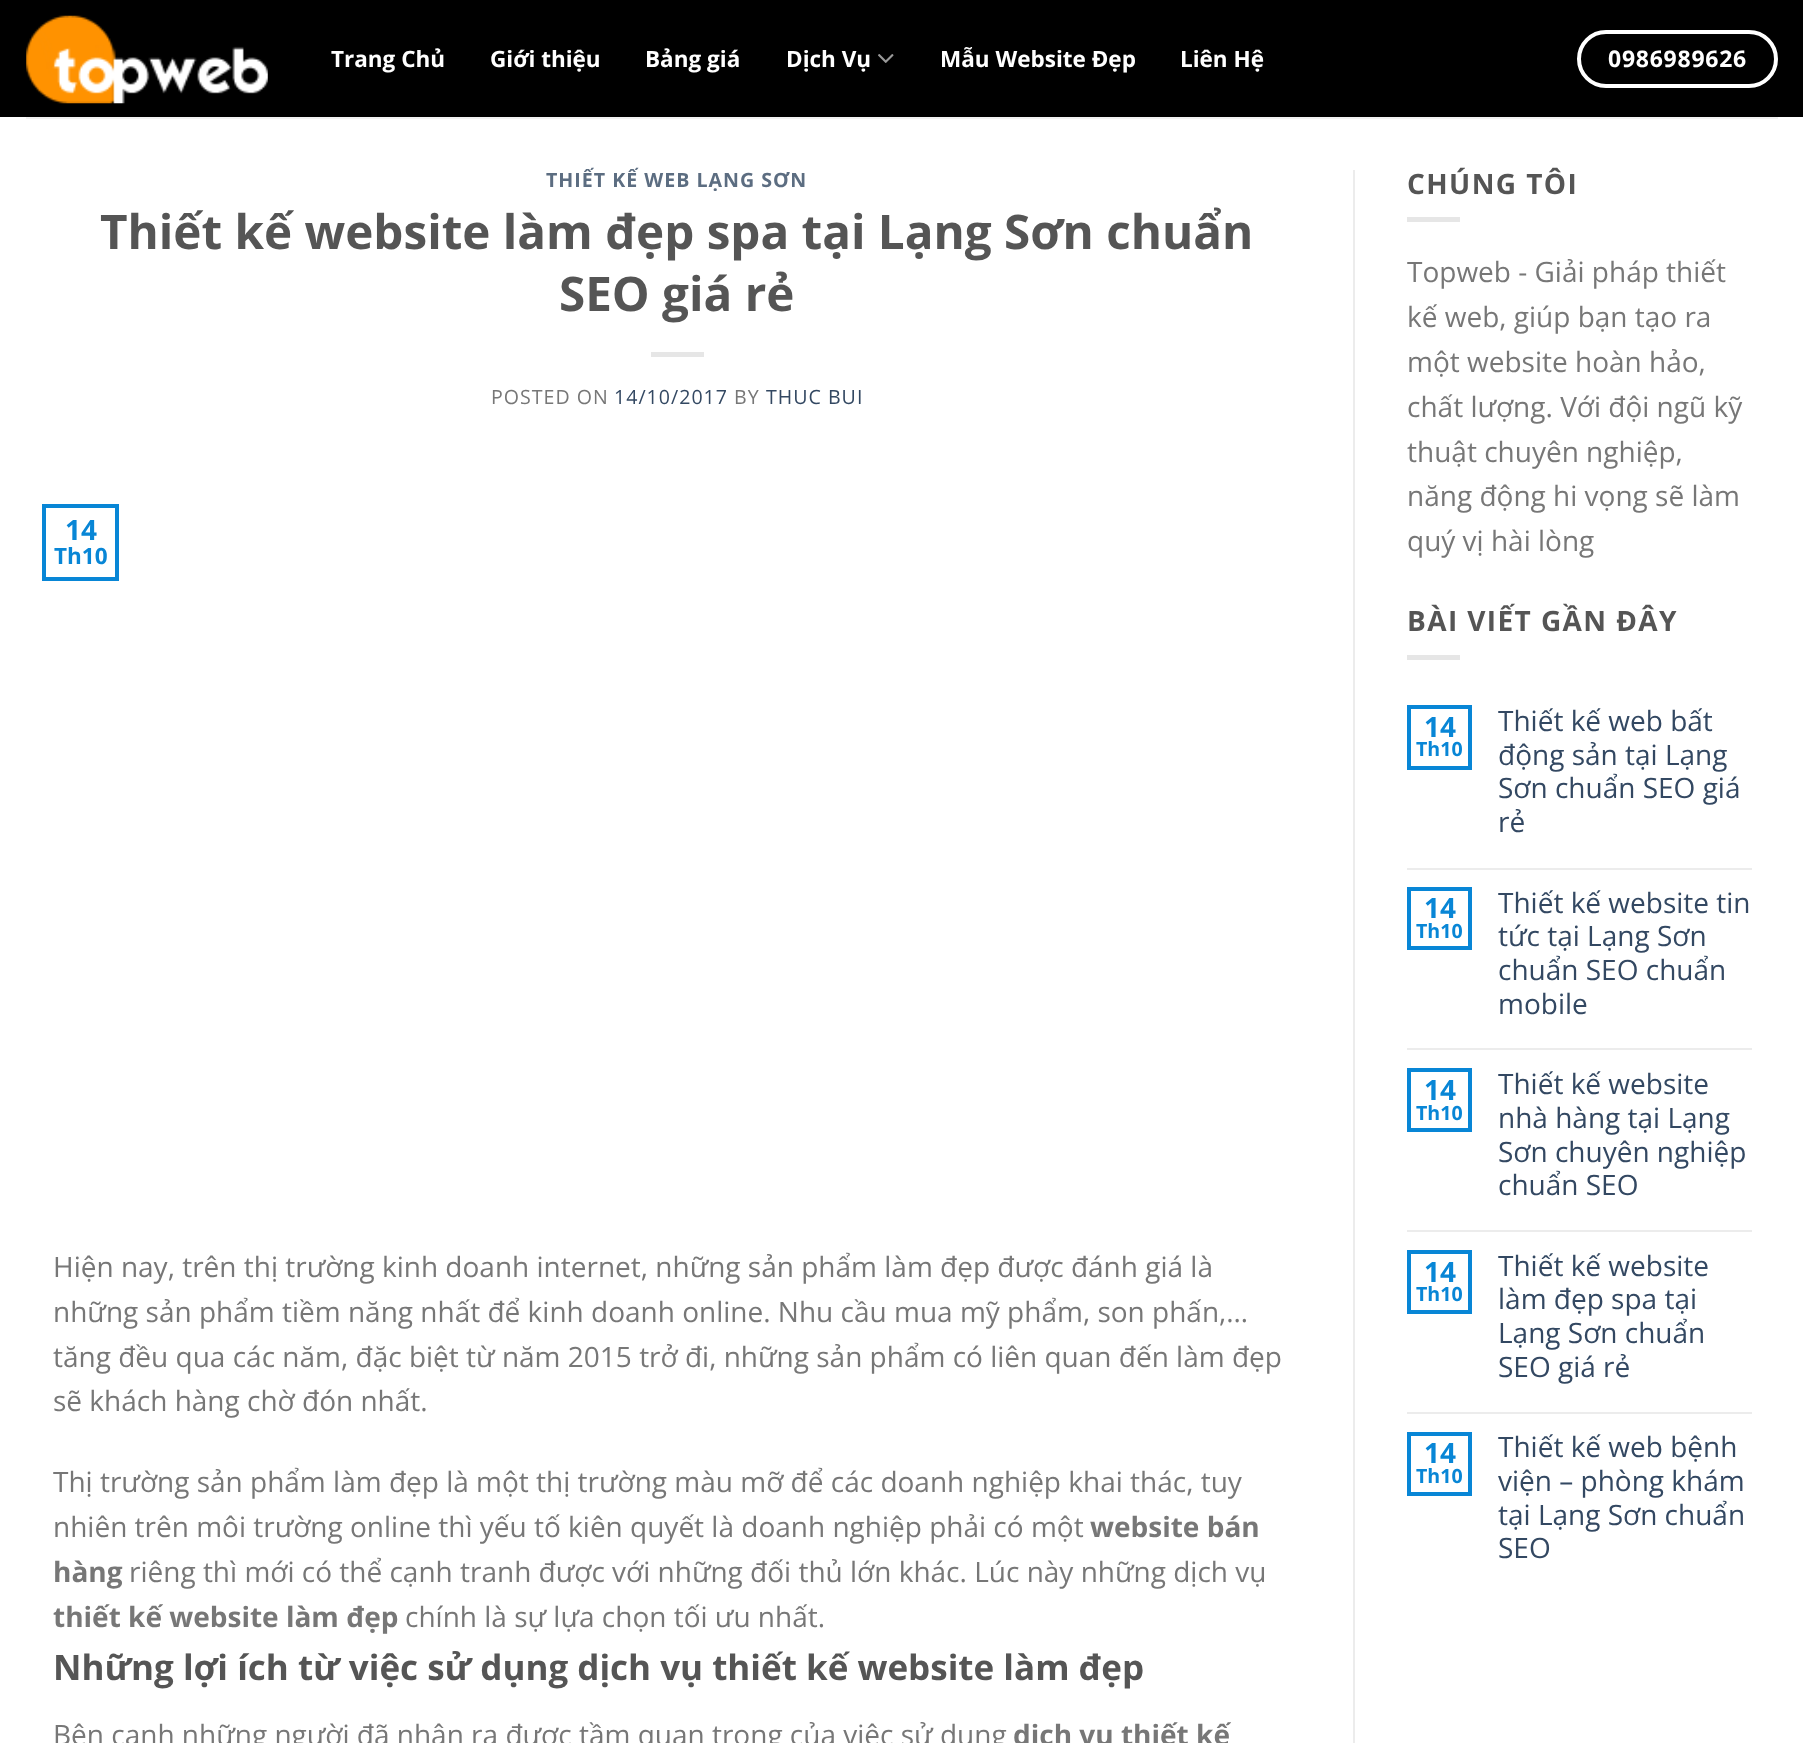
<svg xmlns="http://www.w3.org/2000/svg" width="1803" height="1743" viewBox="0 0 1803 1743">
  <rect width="100%" height="100%" fill="rgb(255,255,255)"/>
  <rect x="0" y="0" width="1803" height="117" fill="rgb(0,0,0)"/>
  <image x="26" y="15" width="242" height="89" href="pic1.png"/>
  <g font-family="Open Sans" font-size="22.5" font-weight="bold" fill="rgb(255,255,255)">
    <text x="331" y="67">Trang Chủ</text>
    <text x="490" y="67">Giới thiệu</text>
    <text x="645" y="67">Bảng giá</text>
    <text x="786" y="67">Dịch Vụ</text>
  </g>
  <image x="878" y="54" width="16" height="9" href="pic2.png"/>
  <g font-family="Open Sans" font-size="22.5" font-weight="bold" fill="rgb(255,255,255)">
    <text x="940" y="67">Mẫu Website Đẹp</text>
    <text x="1180" y="67">Liên Hệ</text>
  </g>
  <rect x="1579" y="32" width="197" height="54" rx="27" fill="none" stroke="rgb(255,255,255)" stroke-width="4"/>
  <text x="1608" y="67" font-family="Open Sans" font-size="23" font-weight="bold" letter-spacing="0.75" fill="rgb(255,255,255)">0986989626</text>
  <rect x="26" y="117" width="1752" height="2" fill="rgb(241,241,241)"/>
  <text x="546" y="187" font-family="Open Sans" font-size="19.6" font-weight="bold" letter-spacing="1" fill="rgb(92,109,129)">THIẾT KẾ WEB LẠNG SƠN</text>
  <g font-family="Open Sans" font-size="47.6" font-weight="bold" fill="rgb(85,85,85)">
    <text x="100" y="249">Thiết kế website làm đẹp spa tại Lạng Sơn chuẩn</text>
    <text x="559" y="311">SEO giá rẻ</text>
  </g>
  <rect x="651" y="352" width="53" height="5" fill="rgb(230,230,230)"/>
  <text x="491" y="404" font-family="Open Sans" font-size="19.6" letter-spacing="1" fill="rgb(119,119,119)">POSTED ON</text>
  <text x="614" y="404" font-family="Open Sans" font-size="19.6" letter-spacing="1" fill="rgb(51,72,98)">14/10/2017</text>
  <text x="734" y="404" font-family="Open Sans" font-size="19.6" letter-spacing="1" fill="rgb(119,119,119)">BY</text>
  <text x="766" y="404" font-family="Open Sans" font-size="19.6" letter-spacing="1" fill="rgb(51,72,98)">THUC BUI</text>
  <rect x="44" y="506" width="73" height="73" fill="none" stroke="rgb(8,134,214)" stroke-width="4"/>
  <text x="65" y="540" font-family="Open Sans" font-size="28" font-weight="bold" fill="rgb(8,134,214)">14</text>
  <text x="54" y="564" font-family="Open Sans" font-size="22.5" font-weight="bold" fill="rgb(8,134,214)">Th10</text>
  <g font-family="Open Sans" font-size="28" fill="rgb(119,119,119)">
    <text>
      <tspan x="53" y="1277">Hiện nay, trên thị trường kinh doanh internet, những sản phẩm làm đẹp được đánh giá là</tspan>
      <tspan x="53" y="1322">những sản phẩm tiềm năng nhất để kinh doanh online. Nhu cầu mua mỹ phẩm, son phấn,…</tspan>
      <tspan x="53" y="1367">tăng đều qua các năm, đặc biệt từ năm 2015 trở đi, những sản phẩm có liên quan đến làm đẹp</tspan>
      <tspan x="53" y="1411">sẽ khách hàng chờ đón nhất.</tspan>
    </text>
    <text>
      <tspan x="53" y="1492">Thị trường sản phẩm làm đẹp là một thị trường màu mỡ để các doanh nghiệp khai thác, tuy</tspan>
      <tspan x="53" y="1537">nhiên trên môi trường online thì yếu tố kiên quyết là doanh nghiệp phải có một</tspan>
    </text>
  </g>
  <g font-family="Open Sans" font-size="28" font-weight="bold" fill="rgb(119,119,119)">
    <text x="1090" y="1537">website bán</text>
    <text x="53" y="1582">hàng</text>
  </g>
  <text x="129" y="1582" font-family="Open Sans" font-size="28" fill="rgb(119,119,119)">riêng thì mới có thể cạnh tranh được với những đối thủ lớn khác. Lúc này những dịch vụ</text>
  <text x="53" y="1627" font-family="Open Sans" font-size="28" font-weight="bold" fill="rgb(119,119,119)">thiết kế website làm đẹp</text>
  <text x="405" y="1627" font-family="Open Sans" font-size="28" fill="rgb(119,119,119)">chính là sự lựa chọn tối ưu nhất.</text>
  <text x="53" y="1680" font-family="Open Sans" font-size="35" font-weight="bold" fill="rgb(85,85,85)">Những lợi ích từ việc sử dụng dịch vụ thiết kế website làm đẹp</text>
  <text x="53" y="1745" font-family="Open Sans" font-size="28" fill="rgb(119,119,119)">Bên cạnh những người đã nhận ra được tầm quan trọng của việc sử dụng</text>
  <text x="1013" y="1745" font-family="Open Sans" font-size="28" font-weight="bold" fill="rgb(119,119,119)">dịch vụ thiết kế</text>
  <rect x="1353" y="170" width="2" height="1573" fill="rgb(236,236,236)"/>
  <text x="1407" y="194" font-family="Open Sans" font-size="28" font-weight="bold" letter-spacing="1.4" fill="rgb(85,85,85)">CHÚNG TÔI</text>
  <rect x="1407" y="217" width="53" height="5" fill="rgb(230,230,230)"/>
  <g font-family="Open Sans" font-size="28" fill="rgb(119,119,119)">
    <text>
      <tspan x="1407" y="282">Topweb - Giải pháp thiết</tspan>
      <tspan x="1407" y="327">kế web, giúp bạn tạo ra</tspan>
      <tspan x="1407" y="372">một website hoàn hảo,</tspan>
      <tspan x="1407" y="417">chất lượng. Với đội ngũ kỹ</tspan>
      <tspan x="1407" y="462">thuật chuyên nghiệp,</tspan>
      <tspan x="1407" y="506">năng động hi vọng sẽ làm</tspan>
      <tspan x="1407" y="551">quý vị hài lòng</tspan>
    </text>
  </g>
  <text x="1407" y="631" font-family="Open Sans" font-size="28" font-weight="bold" letter-spacing="1.4" fill="rgb(85,85,85)">BÀI VIẾT GẦN ĐÂY</text>
  <rect x="1407" y="655" width="53" height="5" fill="rgb(230,230,230)"/>
  <rect x="1409" y="707" width="61" height="61" fill="none" stroke="rgb(8,134,214)" stroke-width="4"/>
  <text x="1424" y="737" font-family="Open Sans" font-size="28" font-weight="bold" fill="rgb(8,134,214)">14</text>
  <text x="1416" y="756" font-family="Open Sans" font-size="19.6" font-weight="bold" fill="rgb(8,134,214)">Th10</text>
  <g font-family="Open Sans" font-size="28" fill="rgb(51,72,98)">
    <text>
      <tspan x="1498" y="731">Thiết kế web bất</tspan>
      <tspan x="1498" y="765">động sản tại Lạng</tspan>
      <tspan x="1498" y="798">Sơn chuẩn SEO giá</tspan>
      <tspan x="1498" y="832">rẻ</tspan>
    </text>
  </g>
  <rect x="1407" y="868" width="345" height="2" fill="rgb(236,236,236)"/>
  <rect x="1409" y="889" width="61" height="59" fill="none" stroke="rgb(8,134,214)" stroke-width="4"/>
  <text x="1424" y="918" font-family="Open Sans" font-size="28" font-weight="bold" fill="rgb(8,134,214)">14</text>
  <text x="1416" y="938" font-family="Open Sans" font-size="19.6" font-weight="bold" fill="rgb(8,134,214)">Th10</text>
  <g font-family="Open Sans" font-size="28" fill="rgb(51,72,98)">
    <text>
      <tspan x="1498" y="913">Thiết kế website tin</tspan>
      <tspan x="1498" y="946">tức tại Lạng Sơn</tspan>
      <tspan x="1498" y="980">chuẩn SEO chuẩn</tspan>
      <tspan x="1498" y="1014">mobile</tspan>
    </text>
  </g>
  <rect x="1407" y="1048" width="345" height="2" fill="rgb(236,236,236)"/>
  <rect x="1409" y="1070" width="61" height="60" fill="none" stroke="rgb(8,134,214)" stroke-width="4"/>
  <text x="1424" y="1100" font-family="Open Sans" font-size="28" font-weight="bold" fill="rgb(8,134,214)">14</text>
  <text x="1416" y="1120" font-family="Open Sans" font-size="19.6" font-weight="bold" fill="rgb(8,134,214)">Th10</text>
  <g font-family="Open Sans" font-size="28" fill="rgb(51,72,98)">
    <text>
      <tspan x="1498" y="1094">Thiết kế website</tspan>
      <tspan x="1498" y="1128">nhà hàng tại Lạng</tspan>
      <tspan x="1498" y="1162">Sơn chuyên nghiệp</tspan>
      <tspan x="1498" y="1195">chuẩn SEO</tspan>
    </text>
  </g>
  <rect x="1407" y="1230" width="345" height="2" fill="rgb(236,236,236)"/>
  <rect x="1409" y="1252" width="61" height="60" fill="none" stroke="rgb(8,134,214)" stroke-width="4"/>
  <text x="1424" y="1282" font-family="Open Sans" font-size="28" font-weight="bold" fill="rgb(8,134,214)">14</text>
  <text x="1416" y="1301" font-family="Open Sans" font-size="19.6" font-weight="bold" fill="rgb(8,134,214)">Th10</text>
  <g font-family="Open Sans" font-size="28" fill="rgb(51,72,98)">
    <text>
      <tspan x="1498" y="1276">Thiết kế website</tspan>
      <tspan x="1498" y="1309">làm đẹp spa tại</tspan>
      <tspan x="1498" y="1343">Lạng Sơn chuẩn</tspan>
      <tspan x="1498" y="1377">SEO giá rẻ</tspan>
    </text>
  </g>
  <rect x="1407" y="1412" width="345" height="2" fill="rgb(236,236,236)"/>
  <rect x="1409" y="1434" width="61" height="60" fill="none" stroke="rgb(8,134,214)" stroke-width="4"/>
  <text x="1424" y="1463" font-family="Open Sans" font-size="28" font-weight="bold" fill="rgb(8,134,214)">14</text>
  <text x="1416" y="1483" font-family="Open Sans" font-size="19.6" font-weight="bold" fill="rgb(8,134,214)">Th10</text>
  <g font-family="Open Sans" font-size="28" fill="rgb(51,72,98)">
    <text>
      <tspan x="1498" y="1457">Thiết kế web bệnh</tspan>
      <tspan x="1498" y="1491">viện – phòng khám</tspan>
      <tspan x="1498" y="1525">tại Lạng Sơn chuẩn</tspan>
      <tspan x="1498" y="1558">SEO</tspan>
    </text>
  </g>
</svg>
